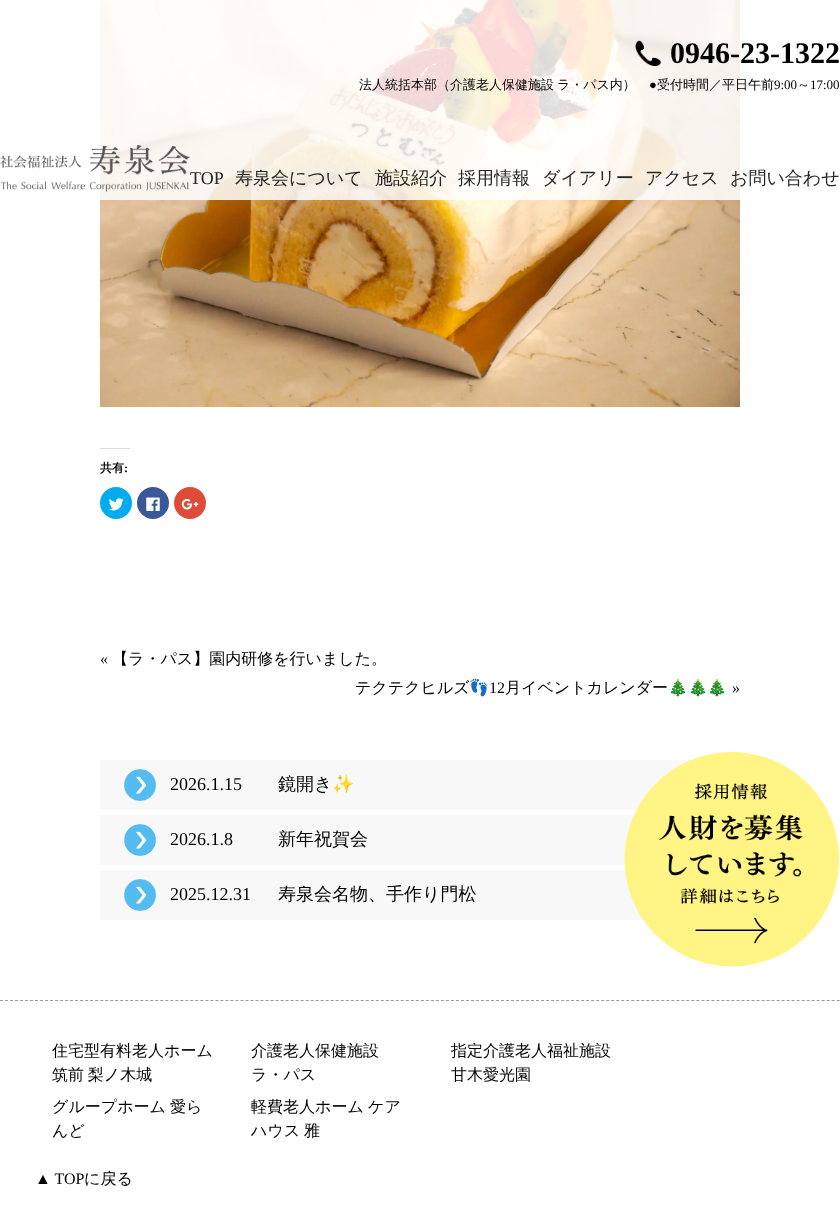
<svg xmlns="http://www.w3.org/2000/svg" width="840" height="1208" viewBox="0 0 840 1208">
  <rect width="100%" height="100%" fill="rgb(255,255,255)"/>
  <image x="100" y="0" width="640" height="407" href="pic3.png"/>
  <rect x="100" y="0" width="640" height="200" fill="rgba(255,255,255,0.85)"/>
  <image x="0" y="145" width="190" height="47" href="pic1.png"/>
  <image x="635" y="40" width="26" height="26" href="pic2.png"/>
  <text x="670" y="63" font-family="Liberation Serif" font-size="30" font-weight="bold" fill="rgb(0,0,0)">0946-23-1322</text>
  <text x="359" y="89" word-spacing="-1" font-family="WenQuanYi Zen Hei" font-size="13" font-weight="500" fill="rgb(0,0,0)">法人統括本部（介護老人保健施設 ラ・パス内）</text>
  <text x="649" y="89" font-family="Liberation Serif" font-size="13" fill="rgb(0,0,0)">●</text>
  <text x="657" y="89" font-family="WenQuanYi Zen Hei" font-size="13" font-weight="500" fill="rgb(0,0,0)">受付時間／平日午前</text>
  <text x="774" y="89" font-family="Liberation Serif" font-size="13" fill="rgb(0,0,0)">9:00</text>
  <text x="797" y="89" font-family="WenQuanYi Zen Hei" font-size="13" font-weight="500" fill="rgb(0,0,0)">～</text>
  <text x="810" y="89" font-family="Liberation Serif" font-size="13" fill="rgb(0,0,0)">17:00</text>
  <text x="190" y="184" font-family="Liberation Serif" font-size="18" fill="rgb(38,38,38)">TOP</text>
  <g font-family="WenQuanYi Zen Hei" font-size="18" font-weight="500" fill="rgb(38,38,38)">
    <text x="235" y="184">寿泉会について</text>
    <text x="375" y="184">施設紹介</text>
    <text x="458" y="184">採用情報</text>
    <text x="542" y="184">ダイアリー</text>
    <text x="645" y="184">アクセス</text>
    <text x="730" y="184">お問い合わせ</text>
  </g>
  <rect x="100" y="448" width="30" height="1" fill="rgb(221,221,221)"/>
  <text x="100" y="472" font-family="WenQuanYi Zen Hei" font-size="12" font-weight="bold" fill="rgb(0,0,0)">共有</text>
  <text x="124" y="472" font-family="Liberation Serif" font-size="12" font-weight="bold" fill="rgb(0,0,0)">:</text>
  <circle cx="116" cy="503" r="16" fill="rgb(0,172,238)"/>
  <image x="108" y="498" width="16" height="13" href="pic4.png"/>
  <circle cx="153" cy="503" r="16" fill="rgb(59,89,152)"/>
  <image x="146" y="497" width="14" height="14" href="pic5.png"/>
  <circle cx="190" cy="503" r="16" fill="rgb(221,75,57)"/>
  <image x="181" y="499" width="18" height="11" href="pic6.png"/>
  <text x="100" y="664" font-family="Liberation Serif" font-size="16" fill="rgb(0,0,0)">«</text>
  <g font-family="WenQuanYi Zen Hei" font-size="16" font-weight="500" fill="rgb(0,0,0)">
    <text x="112" y="664">【ラ・パス】園内研修を行いました。</text>
    <text x="355" y="693">テクテクヒルズ</text>
  </g>
  <text x="469" y="693" font-family="Noto Color Emoji" font-size="16" fill="rgb(0,0,0)">👣</text>
  <text x="489" y="693" font-family="Liberation Serif" font-size="16" fill="rgb(0,0,0)">12</text>
  <text x="505" y="693" font-family="WenQuanYi Zen Hei" font-size="16" font-weight="500" fill="rgb(0,0,0)">月イベントカレンダー</text>
  <text x="668" y="693" font-family="Noto Color Emoji" font-size="16" fill="rgb(0,0,0)">🎄🎄🎄</text>
  <text x="732" y="693" font-family="Liberation Serif" font-size="16" fill="rgb(0,0,0)">»</text>
  <rect x="100" y="760" width="593" height="50" fill="rgb(248,248,248)"/>
  <image x="124" y="769" width="32" height="32" href="pic7.png"/>
  <text x="170" y="790" font-family="Liberation Serif" font-size="18" fill="rgb(0,0,0)">2026.1.15</text>
  <text x="278" y="790" font-family="WenQuanYi Zen Hei" font-size="18" font-weight="500" fill="rgb(0,0,0)">鏡開き</text>
  <text x="332" y="790" font-family="Noto Color Emoji" font-size="18" fill="rgb(0,0,0)">✨</text>
  <rect x="100" y="815" width="535" height="50" fill="rgb(248,248,248)"/>
  <image x="124" y="824" width="32" height="32" href="pic7.png"/>
  <text x="170" y="845" font-family="Liberation Serif" font-size="18" fill="rgb(0,0,0)">2026.1.8</text>
  <text x="278" y="845" font-family="WenQuanYi Zen Hei" font-size="18" font-weight="500" fill="rgb(0,0,0)">新年祝賀会</text>
  <rect x="100" y="870" width="544" height="50" fill="rgb(248,248,248)"/>
  <image x="124" y="879" width="32" height="32" href="pic7.png"/>
  <text x="170" y="900" font-family="Liberation Serif" font-size="18" fill="rgb(0,0,0)">2025.12.31</text>
  <text x="278" y="900" font-family="WenQuanYi Zen Hei" font-size="18" font-weight="500" fill="rgb(0,0,0)">寿泉会名物、手作り門松</text>
  <image x="624" y="751" width="216" height="216" href="pic8.png"/>
  <path d="M0 1000.5H840" fill="none" stroke="rgb(153,153,153)" stroke-dasharray="3 2.01"/>
  <g font-family="WenQuanYi Zen Hei" font-size="16" font-weight="500" fill="rgb(0,0,0)">
    <text>
      <tspan x="52" y="1056">住宅型有料老人ホーム</tspan>
      <tspan x="52" y="1080" word-spacing="-1">筑前 梨ノ木城</tspan>
    </text>
    <text>
      <tspan x="251" y="1056">介護老人保健施設</tspan>
      <tspan x="251" y="1080">ラ・パス</tspan>
    </text>
    <text>
      <tspan x="451" y="1056">指定介護老人福祉施設</tspan>
      <tspan x="451" y="1080">甘木愛光園</tspan>
    </text>
    <text x="52" y="1112">グループホーム</text>
    <text x="170" y="1112">愛ら</text>
    <text x="52" y="1136">んど</text>
    <text x="251" y="1112">軽費老人ホーム</text>
    <text x="368" y="1112">ケア</text>
    <text x="251" y="1136" word-spacing="-1">ハウス 雅</text>
  </g>
  <text x="35" y="1184" font-family="Liberation Serif" font-size="16" fill="rgb(0,0,0)">▲ TOP</text>
  <text x="84" y="1184" font-family="WenQuanYi Zen Hei" font-size="16" font-weight="500" fill="rgb(0,0,0)">に戻る</text>
</svg>
